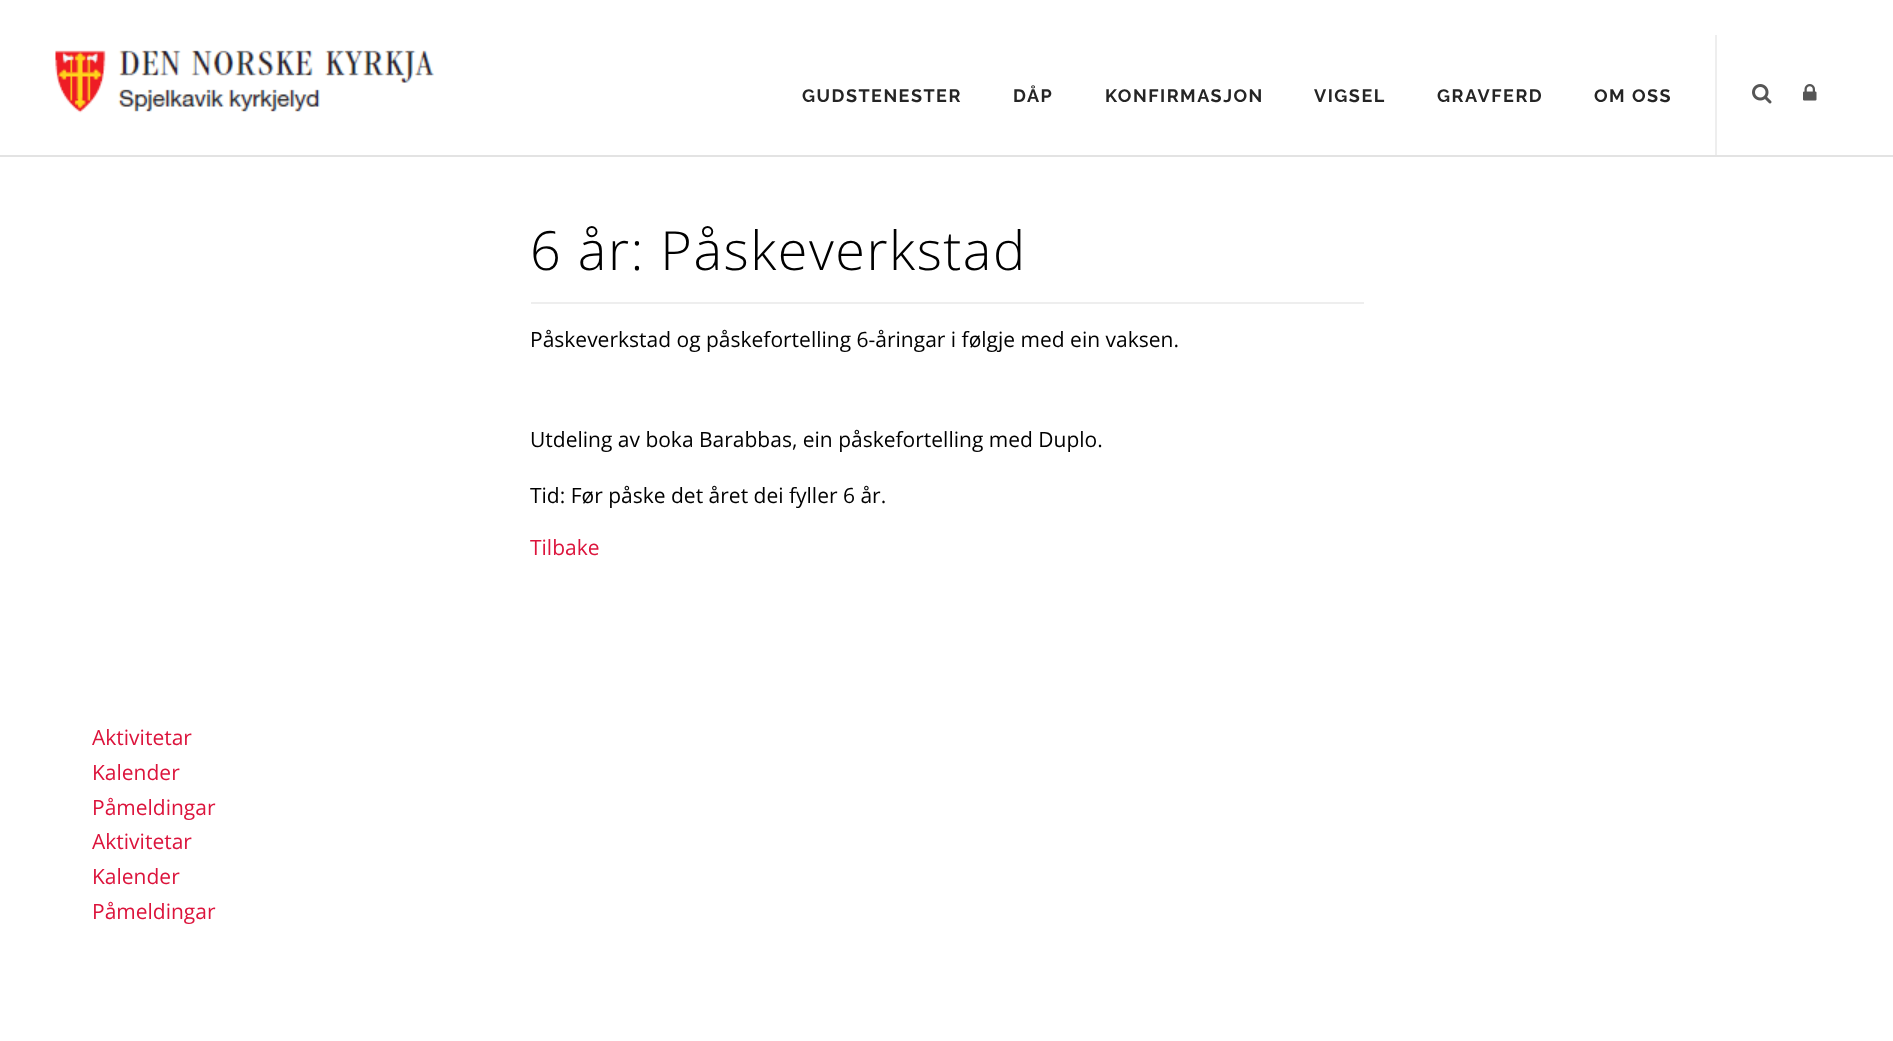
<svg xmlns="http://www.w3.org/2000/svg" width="1893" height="1041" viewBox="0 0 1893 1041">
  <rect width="100%" height="100%" fill="rgb(255,255,255)"/>
  <rect x="0" y="155" width="1893" height="2" fill="rgb(227,227,227)"/>
  <image x="55" y="50" width="380" height="63" href="pic1.png"/>
  <g font-family="Raleway" font-size="18" font-weight="bold" letter-spacing="1.5" fill="rgb(37,37,37)">
    <text x="802" y="102">GUDSTENESTER</text>
    <text x="1013" y="102">DÅP</text>
    <text x="1105" y="102">KONFIRMASJON</text>
    <text x="1314" y="102">VIGSEL</text>
    <text x="1437" y="102">GRAVFERD</text>
    <text x="1594" y="102">OM OSS</text>
  </g>
  <rect x="1715" y="35" width="2" height="120" fill="rgb(238,238,238)"/>
  <image x="1752" y="84" width="20" height="20" href="pic2.png"/>
  <image x="1803" y="84" width="14" height="17" href="pic3.png"/>
  <text x="530" y="270" font-family="Open Sans" font-size="54" font-weight="300" letter-spacing="1.5" fill="rgb(0,0,0)">6 år: Påskeverkstad</text>
  <rect x="531" y="302" width="833" height="2" fill="rgb(238,238,238)"/>
  <g font-family="Open Sans" font-size="21" fill="rgb(0,0,0)">
    <text x="530" y="347">Påskeverkstad og påskefortelling 6-åringar i følgje med ein vaksen.</text>
    <text x="530" y="447">Utdeling av boka Barabbas, ein påskefortelling med Duplo.</text>
    <text x="530" y="503">Tid: Før påske det året dei fyller 6 år.</text>
  </g>
  <g font-family="Open Sans" font-size="21" fill="rgb(220,20,60)">
    <text x="530" y="555">Tilbake</text>
    <text>
      <tspan x="92" y="745">Aktivitetar</tspan>
      <tspan x="92" y="780">Kalender</tspan>
      <tspan x="92" y="815">Påmeldingar</tspan>
      <tspan x="92" y="849">Aktivitetar</tspan>
      <tspan x="92" y="884">Kalender</tspan>
      <tspan x="92" y="919">Påmeldingar</tspan>
    </text>
  </g>
</svg>
